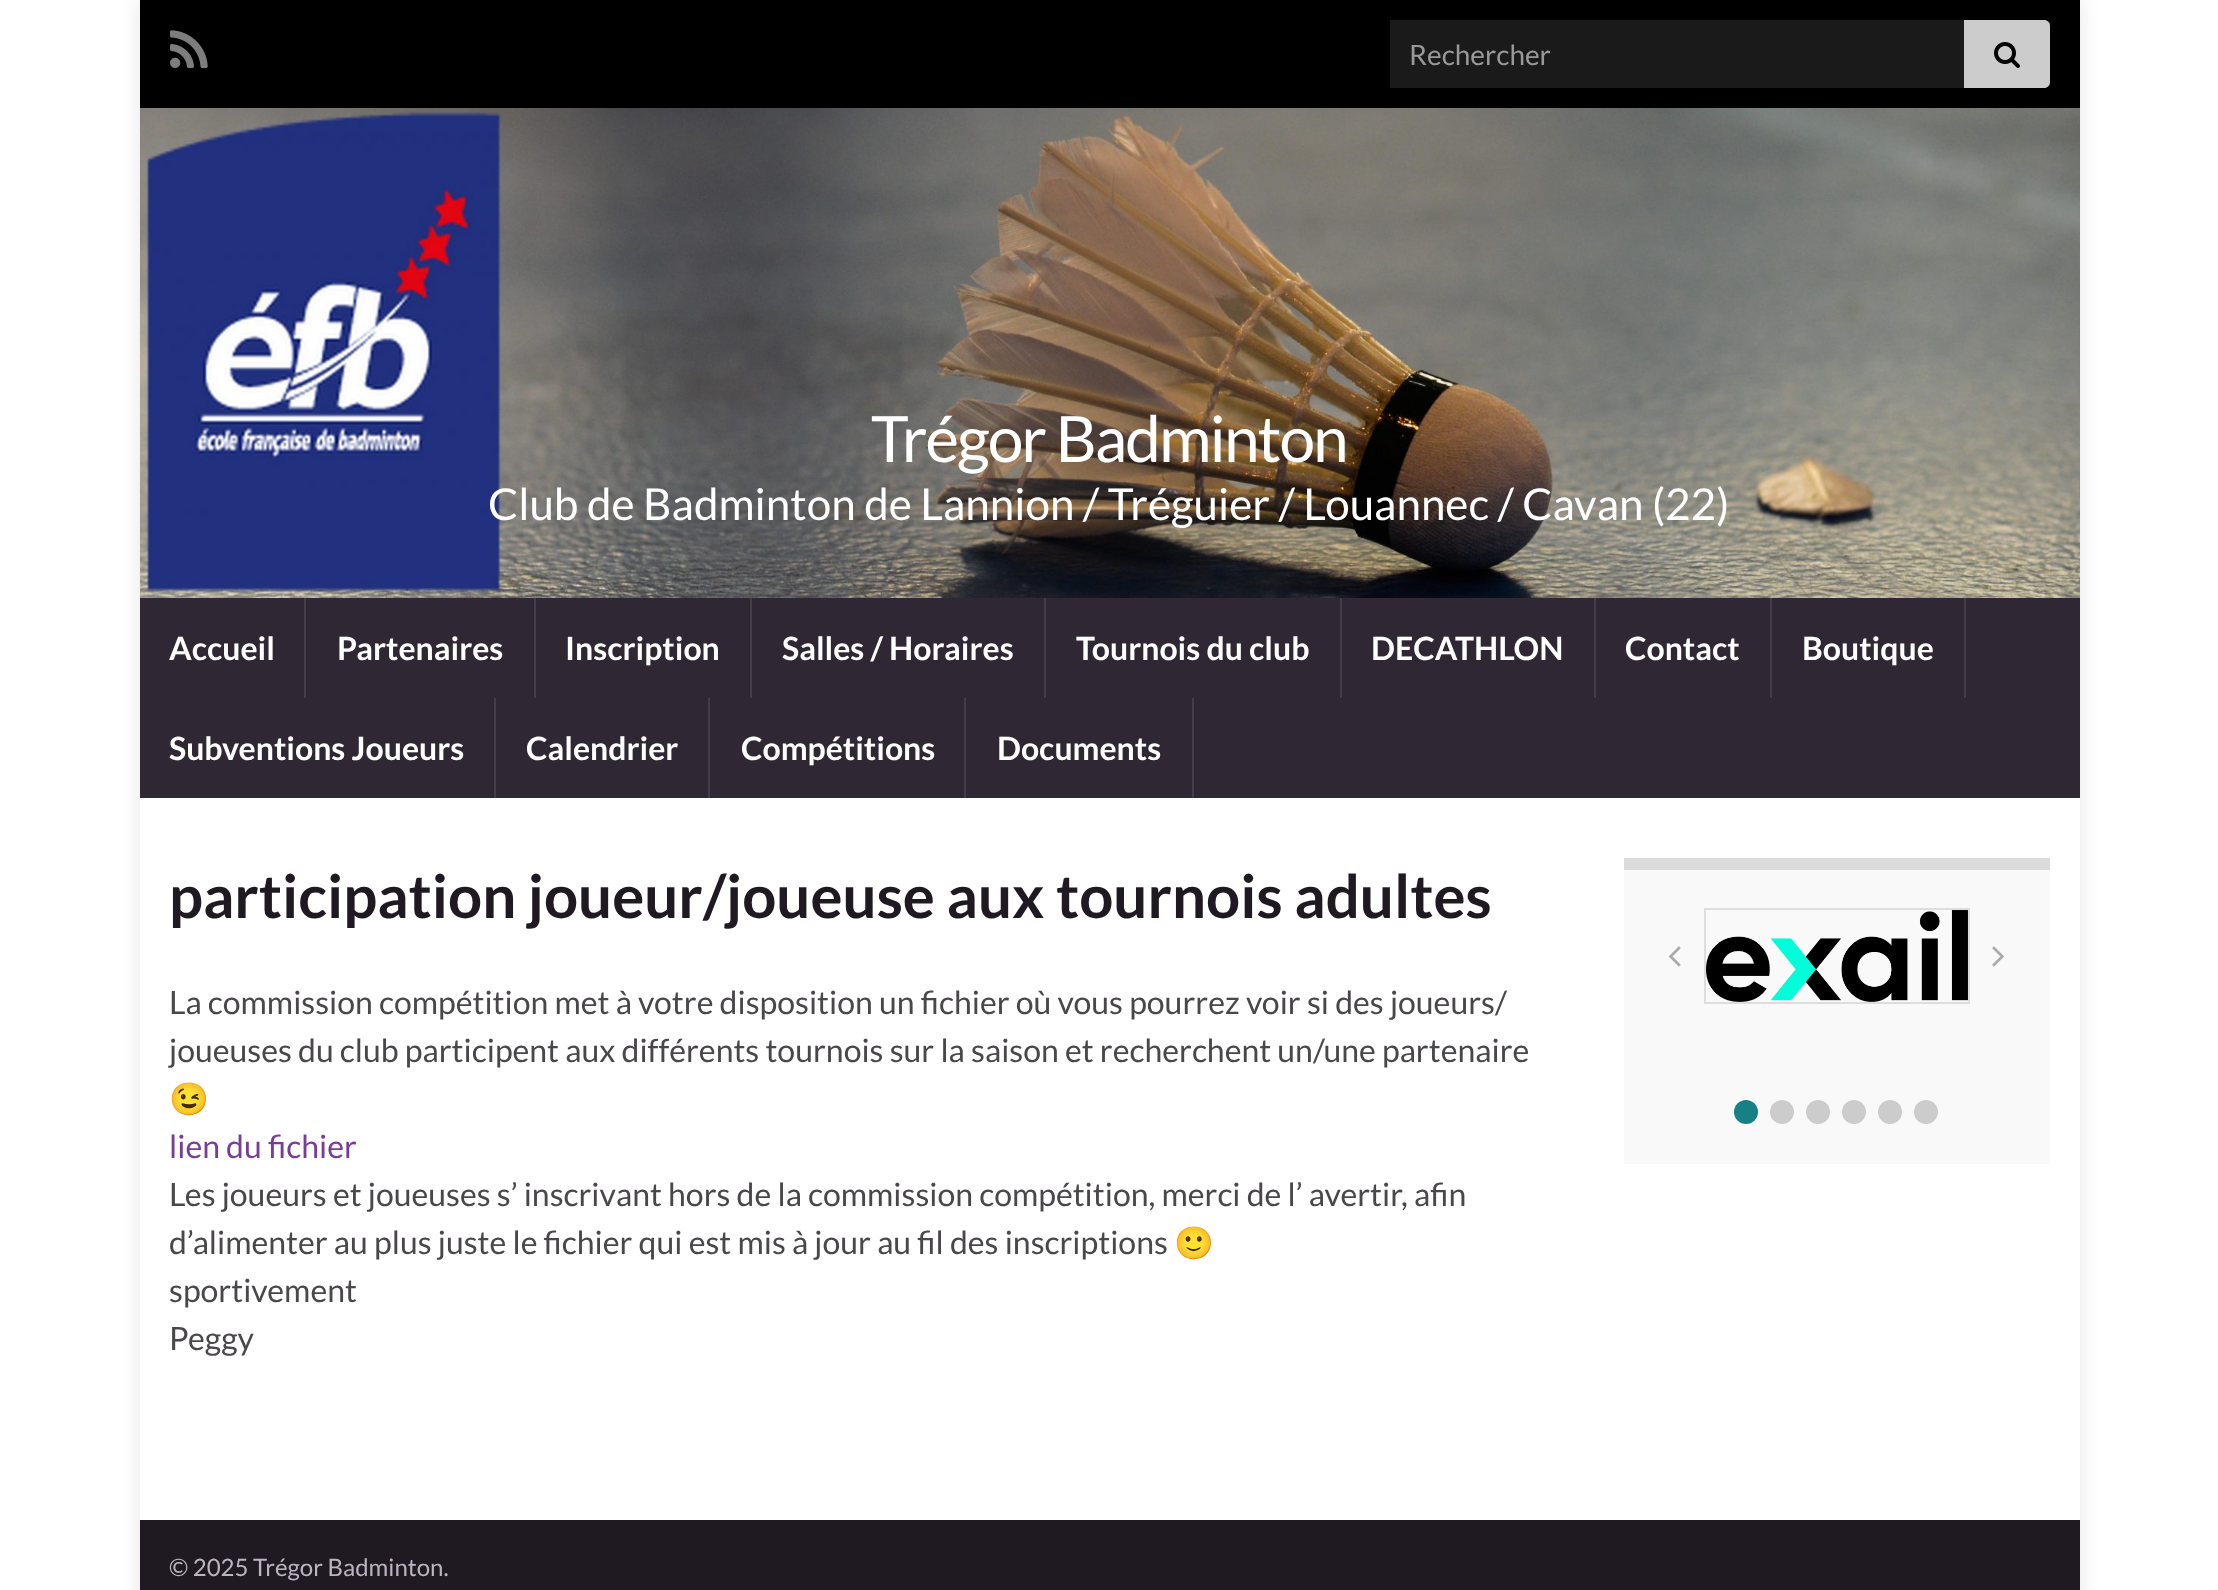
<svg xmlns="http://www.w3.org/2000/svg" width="2218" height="1590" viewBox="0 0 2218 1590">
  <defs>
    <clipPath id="clip1"><path d="M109 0H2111V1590H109ZM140 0H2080V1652H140Z" clip-rule="evenodd"/></clipPath>
  </defs>
  <rect width="100%" height="100%" fill="rgb(255,255,255)"/>
  <g clip-path="url(#clip1)">
    <rect x="140" y="0" width="1940" height="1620" fill="rgba(0,0,0,0.1)" filter="blur(10px)"/>
  </g>
  <rect x="140" y="0" width="1940" height="108" fill="rgb(0,0,0)"/>
  <image x="170" y="30" width="38" height="38" href="pic1.png"/>
  <rect x="1390" y="20" width="574" height="68" fill="rgb(26,26,26)"/>
  <text x="1409" y="65" font-family="Lato" font-size="28" fill="rgb(153,153,153)">Rechercher</text>
  <path d="M1964 20H2044C2047.5 20 2050 22.5 2050 26V82C2050 85.5 2047.5 88 2044 88H1964Z" fill="rgb(204,204,204)"/>
  <image x="1994" y="42" width="26" height="26" href="pic2.png"/>
  <image x="140" y="108" width="1940" height="490" href="pic3.png"/>
  <rect x="140" y="598" width="1940" height="200" fill="rgb(47,39,51)"/>
  <text x="871" y="462" font-family="Lato" font-size="64" letter-spacing="-2" fill="rgb(255,255,255)">Trégor Badminton</text>
  <text x="488" y="520" font-family="Lato" font-size="44" fill="rgb(255,255,255)">Club de Badminton de Lannion / Tréguier / Louannec / Cavan (22)</text>
  <rect x="304" y="598" width="2" height="100" fill="rgb(68,61,71)"/>
  <text x="169" y="660" font-family="Lato" font-size="32" font-weight="bold" fill="rgb(255,255,255)">Accueil</text>
  <rect x="534" y="598" width="2" height="100" fill="rgb(68,61,71)"/>
  <text x="337" y="660" font-family="Lato" font-size="32" font-weight="bold" fill="rgb(255,255,255)">Partenaires</text>
  <rect x="750" y="598" width="2" height="100" fill="rgb(68,61,71)"/>
  <text x="565" y="660" font-family="Lato" font-size="32" font-weight="bold" fill="rgb(255,255,255)">Inscription</text>
  <rect x="1044" y="598" width="2" height="100" fill="rgb(68,61,71)"/>
  <text x="782" y="660" font-family="Lato" font-size="32" font-weight="bold" fill="rgb(255,255,255)">Salles / Horaires</text>
  <rect x="1340" y="598" width="2" height="100" fill="rgb(68,61,71)"/>
  <text x="1076" y="660" font-family="Lato" font-size="32" font-weight="bold" fill="rgb(255,255,255)">Tournois du club</text>
  <rect x="1594" y="598" width="2" height="100" fill="rgb(68,61,71)"/>
  <text x="1371" y="660" font-family="Lato" font-size="32" font-weight="bold" fill="rgb(255,255,255)">DECATHLON</text>
  <rect x="1770" y="598" width="2" height="100" fill="rgb(68,61,71)"/>
  <text x="1625" y="660" font-family="Lato" font-size="32" font-weight="bold" fill="rgb(255,255,255)">Contact</text>
  <rect x="1964" y="598" width="2" height="100" fill="rgb(68,61,71)"/>
  <text x="1802" y="660" font-family="Lato" font-size="32" font-weight="bold" fill="rgb(255,255,255)">Boutique</text>
  <rect x="494" y="698" width="2" height="100" fill="rgb(68,61,71)"/>
  <text x="169" y="760" font-family="Lato" font-size="32" font-weight="bold" fill="rgb(255,255,255)">Subventions Joueurs</text>
  <rect x="708" y="698" width="2" height="100" fill="rgb(68,61,71)"/>
  <text x="526" y="760" font-family="Lato" font-size="32" font-weight="bold" fill="rgb(255,255,255)">Calendrier</text>
  <rect x="964" y="698" width="2" height="100" fill="rgb(68,61,71)"/>
  <text x="741" y="760" font-family="Lato" font-size="32" font-weight="bold" fill="rgb(255,255,255)">Compétitions</text>
  <rect x="1192" y="698" width="2" height="100" fill="rgb(68,61,71)"/>
  <text x="997" y="760" font-family="Lato" font-size="32" font-weight="bold" fill="rgb(255,255,255)">Documents</text>
  <text x="169" y="918" font-family="Lato" font-size="60" font-weight="bold" fill="rgb(31,26,34)">participation joueur/joueuse aux tournois adultes</text>
  <g font-family="Lato" font-size="32" fill="rgb(74,71,75)">
    <text>
      <tspan x="169" y="1014">La commission compétition met à votre disposition un fichier où vous pourrez voir si des joueurs/</tspan>
      <tspan x="169" y="1062">joueuses du club participent aux différents tournois sur la saison et recherchent un/une partenaire</tspan>
    </text>
  </g>
  <text x="169" y="1110" font-family="Noto Color Emoji" font-size="32" fill="rgb(74,71,75)">😉</text>
  <text x="169" y="1158" font-family="Lato" font-size="32" fill="rgb(120,61,152)">lien du fichier</text>
  <g font-family="Lato" font-size="32" fill="rgb(74,71,75)">
    <text>
      <tspan x="169" y="1206">Les joueurs et joueuses s’ inscrivant hors de la commission compétition, merci de l’ avertir, afin</tspan>
      <tspan x="169" y="1254">d’alimenter au plus juste le fichier qui est mis à jour au fil des inscriptions</tspan>
    </text>
  </g>
  <text x="1174" y="1254" font-family="Noto Color Emoji" font-size="32" fill="rgb(74,71,75)">🙂</text>
  <g font-family="Lato" font-size="32" fill="rgb(74,71,75)">
    <text>
      <tspan x="169" y="1302">sportivement</tspan>
      <tspan x="169" y="1350">Peggy</tspan>
    </text>
  </g>
  <rect x="1624" y="870" width="426" height="294" fill="rgb(249,249,249)"/>
  <rect x="1624" y="858" width="426" height="12" fill="rgb(219,219,219)"/>
  <image x="1669" y="946" width="12" height="21" href="pic4.png"/>
  <rect x="1705" y="909" width="264" height="94" fill="none" stroke="rgb(221,221,221)" stroke-width="2"/>
  <image x="1706" y="910" width="262" height="92" href="pic5.png"/>
  <image x="1992" y="946" width="12" height="21" href="pic6.png"/>
  <circle cx="1746" cy="1112" r="12" fill="rgb(23,128,135)"/>
  <circle cx="1782" cy="1112" r="12" fill="rgb(204,204,204)"/>
  <circle cx="1818" cy="1112" r="12" fill="rgb(204,204,204)"/>
  <circle cx="1854" cy="1112" r="12" fill="rgb(204,204,204)"/>
  <circle cx="1890" cy="1112" r="12" fill="rgb(204,204,204)"/>
  <circle cx="1926" cy="1112" r="12" fill="rgb(204,204,204)"/>
  <rect x="140" y="1520" width="1940" height="70" fill="rgb(31,26,34)"/>
  <text x="169" y="1576" font-family="Lato" font-size="24" fill="rgb(188,180,193)">© 2025 Trégor Badminton.</text>
</svg>
